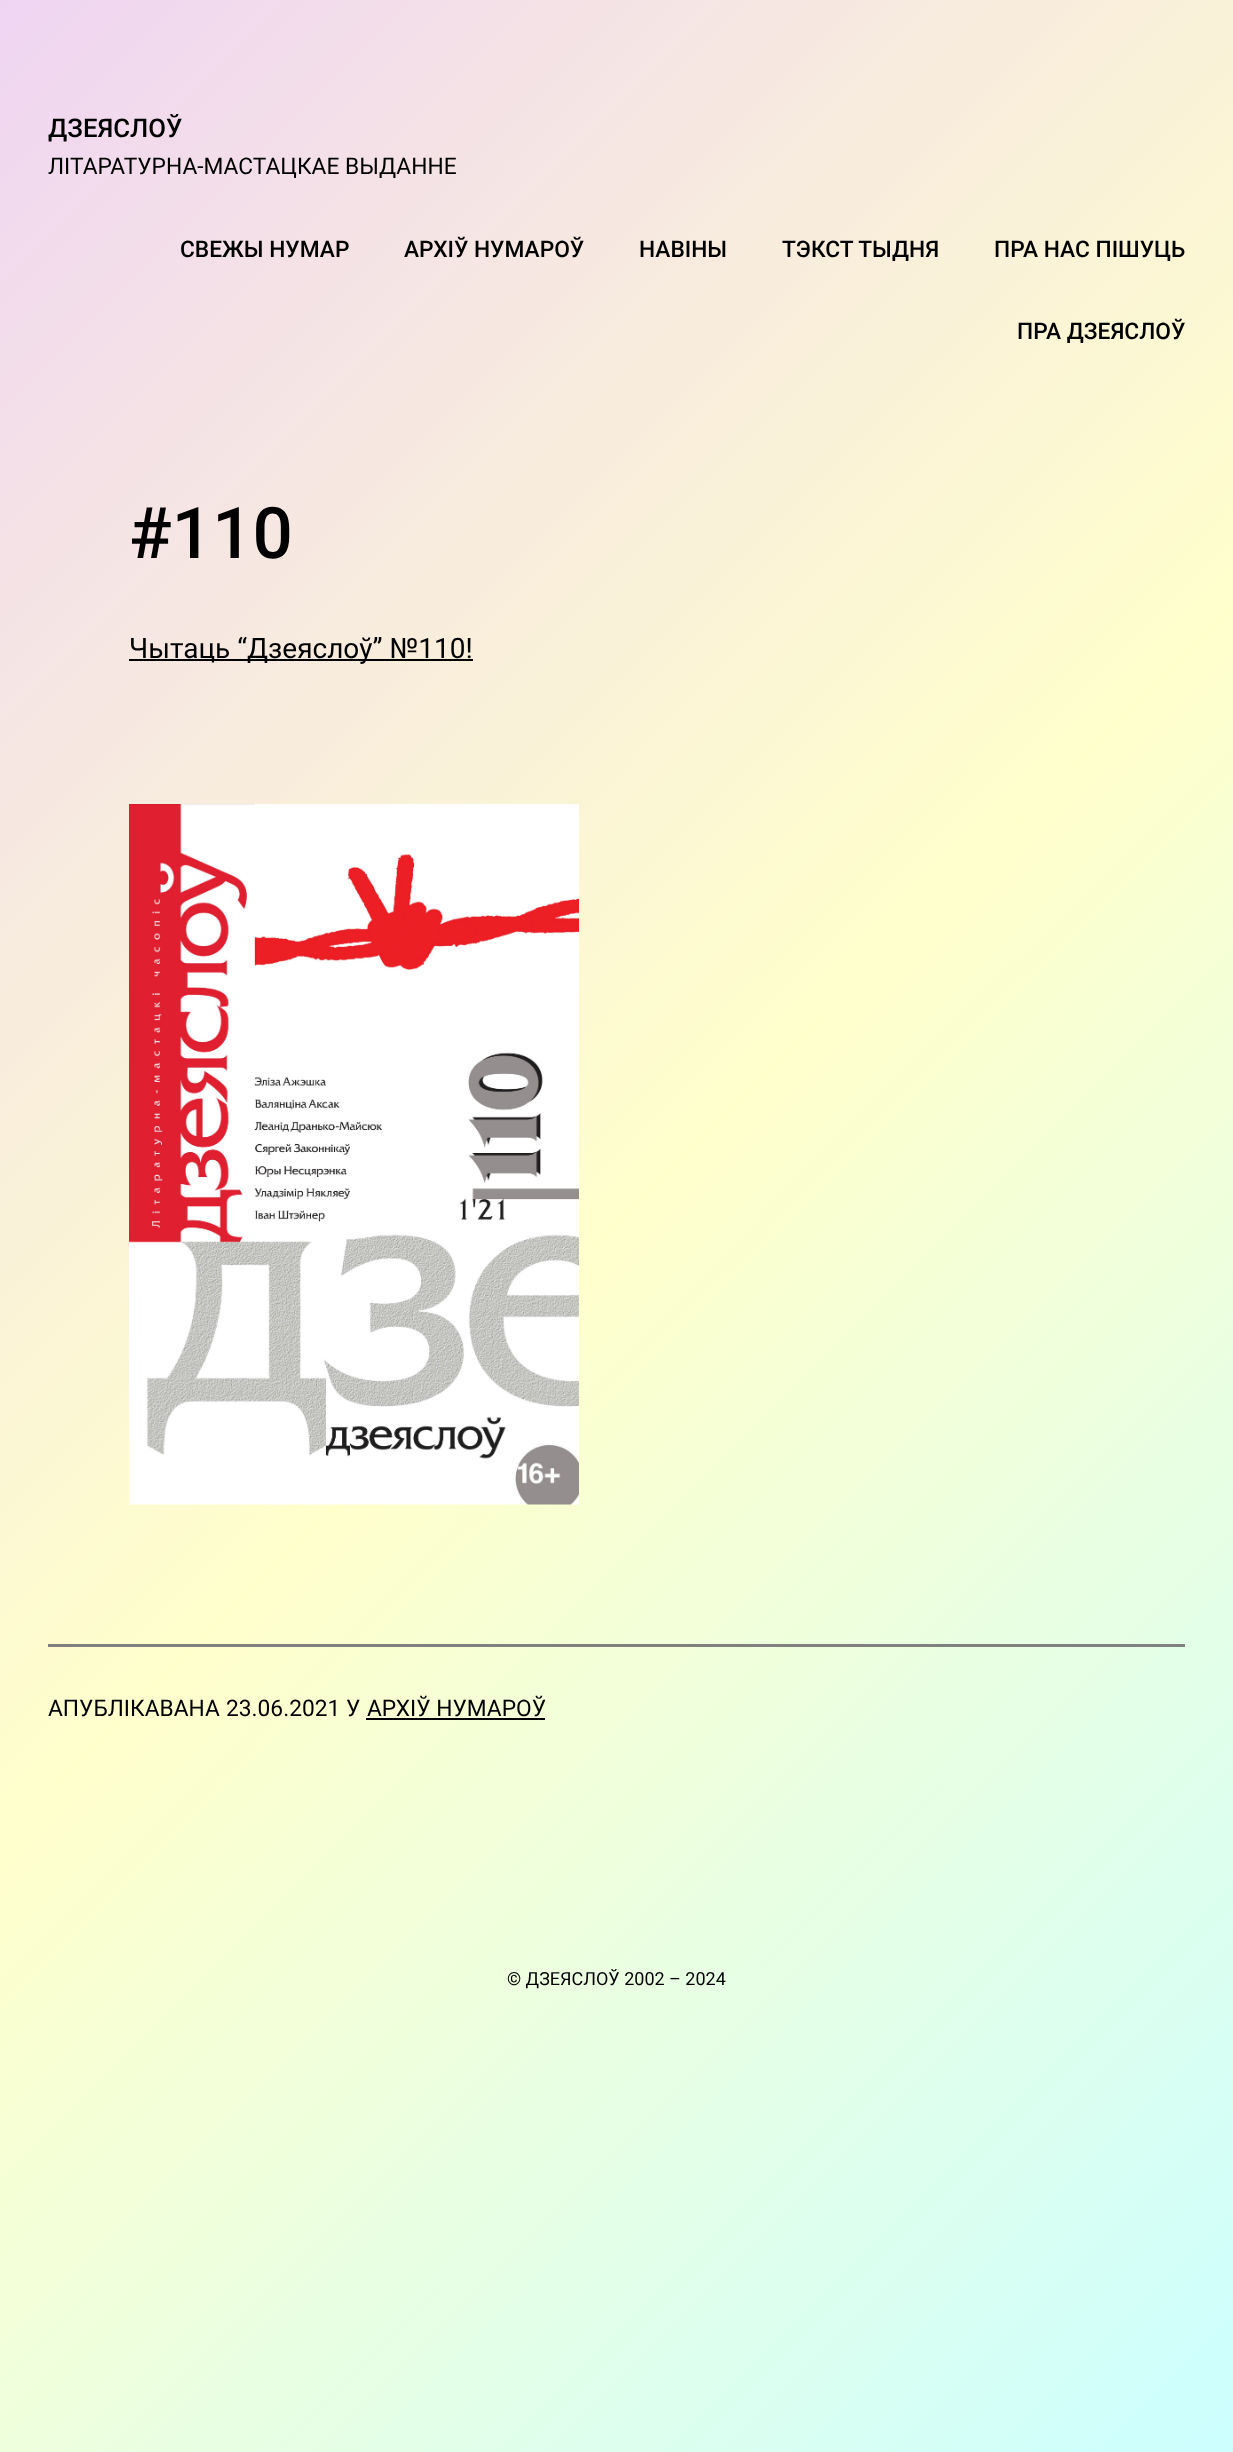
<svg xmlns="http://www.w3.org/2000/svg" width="1233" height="2452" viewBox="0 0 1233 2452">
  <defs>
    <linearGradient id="g1" gradientUnits="userSpaceOnUse" x1="-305" y1="305" x2="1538" y2="2148"><stop offset="0" stop-color="rgb(239,213,242)"/><stop offset="0.5" stop-color="rgb(255,255,204)"/><stop offset="1" stop-color="rgb(204,255,255)"/></linearGradient>
  </defs>
  <rect width="100%" height="100%" fill="rgb(255,255,255)"/>
  <rect x="0" y="0" width="1233" height="2452" fill="url(#g1)"/>
  <text x="48" y="137" font-family="Roboto" font-size="25.75" font-weight="500" fill="rgb(0,0,0)">ДЗЕЯСЛОЎ</text>
  <text x="48" y="174" font-family="Roboto" font-size="22.75" fill="rgb(0,0,0)">ЛІТАРАТУРНА-МАСТАЦКАЕ ВЫДАННЕ</text>
  <g font-family="Roboto" font-size="22.75" font-weight="500" fill="rgb(0,0,0)">
    <text x="180" y="257">СВЕЖЫ НУМАР</text>
    <text x="404" y="257">АРХІЎ НУМАРОЎ</text>
    <text x="639" y="257">НАВІНЫ</text>
    <text x="782" y="257">ТЭКСТ ТЫДНЯ</text>
    <text x="994" y="257">ПРА НАС ПІШУЦЬ</text>
    <text x="1017" y="339">ПРА ДЗЕЯСЛОЎ</text>
  </g>
  <text x="129" y="558" font-family="Roboto" font-size="71" font-weight="500" fill="rgb(0,0,0)">#110</text>
  <rect x="129" y="659" width="344" height="2" fill="rgb(0,0,0)"/>
  <text x="129" y="658" font-family="Roboto" font-size="28" fill="rgb(0,0,0)">Чытаць “Дзеяслоў” №110!</text>
  <image x="129" y="804" width="450" height="701" href="pic1.png"/>
  <rect x="48" y="1644" width="1137" height="3" fill="rgb(128,128,128)"/>
  <g font-family="Roboto" font-size="22.75" fill="rgb(0,0,0)">
    <text x="48" y="1716">АПУБЛІКАВАНА</text>
    <text x="226" y="1716">23.06.2021</text>
    <text x="346" y="1716">У</text>
    <text x="367" y="1716">АРХІЎ НУМАРОЎ</text>
  </g>
  <rect x="366" y="1718" width="179" height="2" fill="rgb(0,0,0)"/>
  <text x="507" y="1985" font-family="Roboto" font-size="18" fill="rgb(0,0,0)">© ДЗЕЯСЛОЎ 2002 – 2024</text>
</svg>
